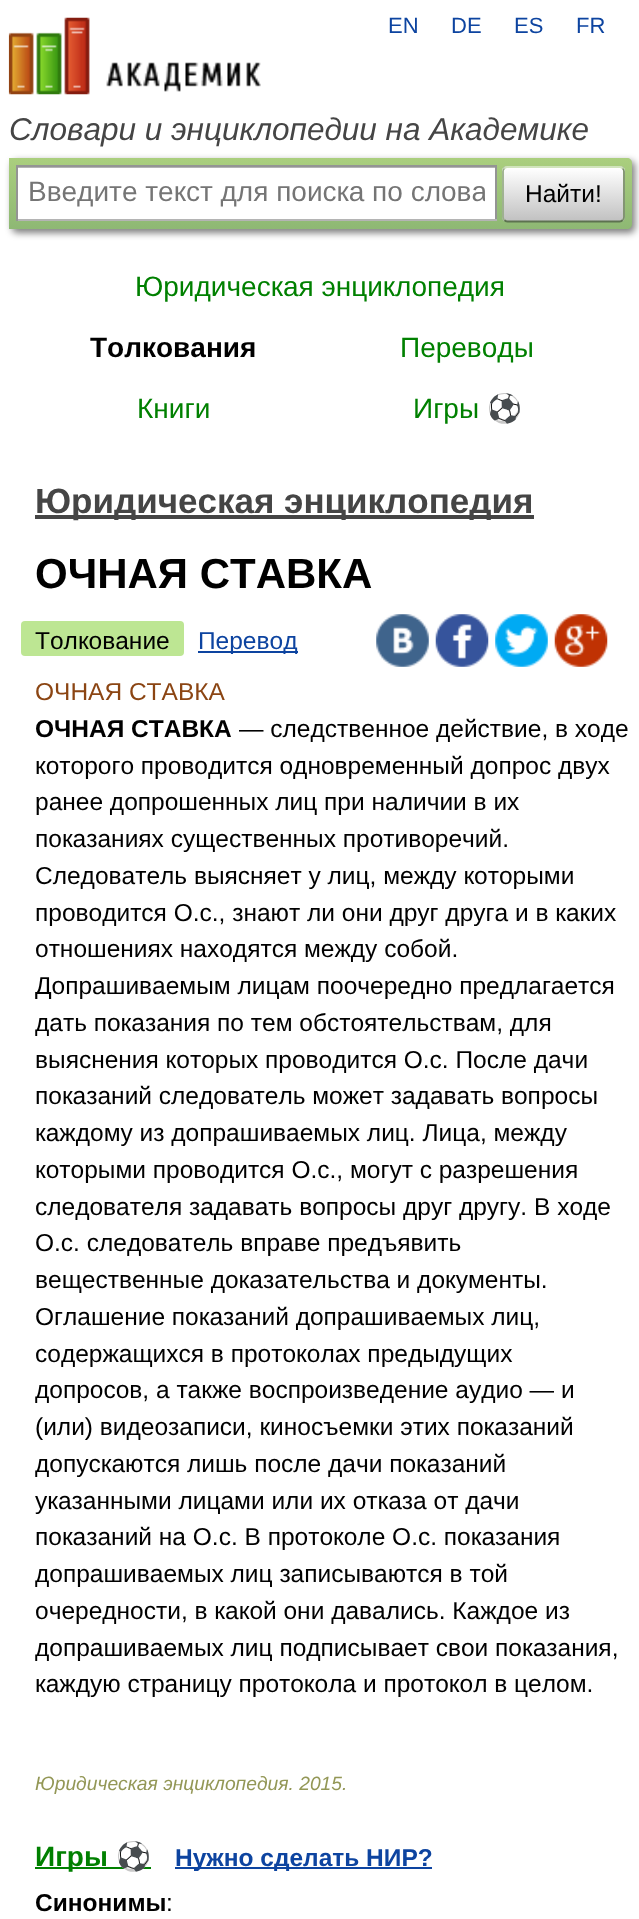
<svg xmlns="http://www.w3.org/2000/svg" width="639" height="1919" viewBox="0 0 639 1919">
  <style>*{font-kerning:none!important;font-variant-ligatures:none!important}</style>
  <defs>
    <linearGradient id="g1" gradientUnits="userSpaceOnUse" x1="320" y1="157" x2="320" y2="229"><stop offset="0" stop-color="rgb(171,207,126)"/><stop offset="1" stop-color="rgb(142,184,116)"/></linearGradient>
    <clipPath id="clip1"><rect x="28" y="177" width="457" height="31"/></clipPath>
    <clipPath id="clip2"><rect x="502" y="166" width="123" height="56" rx="5"/></clipPath>
    <linearGradient id="g2" gradientUnits="userSpaceOnUse" x1="564" y1="116" x2="564" y2="168"><stop offset="0" stop-color="rgb(255,255,255)"/><stop offset="1" stop-color="rgb(193,193,193)"/></linearGradient>
    <linearGradient id="g3" gradientUnits="userSpaceOnUse" x1="564" y1="168" x2="564" y2="221"><stop offset="0" stop-color="rgb(255,255,255)"/><stop offset="1" stop-color="rgb(193,193,193)"/></linearGradient>
  </defs>
  <rect width="100%" height="100%" fill="rgb(255,255,255)"/>
  <image x="8" y="17" width="253" height="78" href="pic1.png"/>
  <g font-family="Liberation Sans" font-size="22" fill="rgb(13,68,160)">
    <text x="388" y="33">EN</text>
    <text x="451" y="33">DE</text>
    <text x="514" y="33">ES</text>
    <text x="576" y="33">FR</text>
  </g>
  <text x="9" y="140" font-family="Liberation Sans" font-size="31.5" font-style="italic" fill="rgb(69,69,69)">Словари и энциклопедии на Академике</text>
  <rect x="12" y="161" width="623" height="72" rx="5" fill="rgba(0,0,0,0.5)" filter="blur(3.5px)"/>
  <path d="M9 158H627C630 158 632 160 632 163V224C632 227 630 229 627 229H9Z" fill="url(#g1)"/>
  <rect x="18" y="168" width="477" height="51" fill="rgb(255,255,255)"/>
  <rect x="18" y="167" width="477" height="1" fill="rgb(179,179,179)"/>
  <rect x="16" y="165" width="481" height="2" fill="rgb(148,148,148)"/>
  <rect x="495" y="165" width="2" height="56" fill="rgb(148,148,148)"/>
  <rect x="16" y="219" width="481" height="2" fill="rgb(180,180,180)"/>
  <rect x="16" y="165" width="2" height="56" fill="rgb(148,148,148)"/>
  <g clip-path="url(#clip1)">
    <text x="28" y="201" font-family="Liberation Sans" font-size="28" fill="rgb(117,117,117)">Введите текст для поиска по слова</text>
  </g>
  <g clip-path="url(#clip2)">
    <rect x="502" y="166" width="123" height="2" fill="url(#g2)"/>
    <rect x="502" y="168" width="123" height="53" fill="url(#g3)"/>
  </g>
  <path d="M504.5 168.5C505 167.5 506.5 167 507.5 167H619.5C620.5 167 622 167.5 622.5 168.5" fill="none" stroke="rgb(209,228,188)" stroke-width="1.8"/>
  <path d="M622.5 168.5C623.5 169 624 170.5 624 171.5V217C624 218 623.5 219.5 622.5 220" fill="none" stroke="rgb(122,142,105)" stroke-width="1.8"/>
  <path d="M622.5 220C622 221 620.5 221.5 619.5 221.5H507.5C506.5 221.5 505 221 504.5 220" fill="none" stroke="rgb(93,114,80)" stroke-width="1.8"/>
  <path d="M504.5 220C503.5 219.5 503 218 503 217V171.5C503 170.5 503.5 169 504.5 168.5" fill="none" stroke="rgb(154,174,137)" stroke-width="1.8"/>
  <text x="525" y="202" font-family="Liberation Sans" font-size="24.5" fill="rgb(0,0,0)">Найти!</text>
  <text x="135" y="296" font-family="Liberation Sans" font-size="28" fill="rgb(0,128,0)">Юридическая энциклопедия</text>
  <text x="90" y="357" font-family="Liberation Sans" font-size="28" font-weight="bold" fill="rgb(0,0,0)">Толкования</text>
  <g font-family="Liberation Sans" font-size="28" fill="rgb(0,128,0)">
    <text x="400" y="357">Переводы</text>
    <text x="137" y="418">Книги</text>
    <text x="413" y="418">Игры</text>
  </g>
  <text x="487" y="418" font-family="Noto Color Emoji" font-size="28" fill="rgb(0,128,0)">⚽</text>
  <rect x="35" y="515" width="499" height="4" fill="rgb(69,69,69)"/>
  <text x="35" y="513" font-family="Liberation Sans" font-size="35" font-weight="bold" fill="rgb(69,69,69)">Юридическая энциклопедия</text>
  <text x="35" y="588" font-family="Liberation Sans" font-size="42" font-weight="bold" fill="rgb(0,0,0)">ОЧНАЯ СТАВКА</text>
  <rect x="21" y="621" width="163" height="35" rx="4" fill="rgb(189,230,147)"/>
  <text x="35" y="649" font-family="Liberation Sans" font-size="24.5" fill="rgb(0,0,0)">Толкование</text>
  <rect x="198" y="651" width="100" height="2" fill="rgb(13,68,160)"/>
  <text x="198" y="649" font-family="Liberation Sans" font-size="24.5" fill="rgb(13,68,160)">Перевод</text>
  <image x="376" y="614" width="53" height="53" href="pic2.png"/>
  <image x="435" y="614" width="54" height="53" href="pic3.png"/>
  <image x="495" y="614" width="53" height="53" href="pic4.png"/>
  <image x="554" y="614" width="54" height="53" href="pic5.png"/>
  <text x="35" y="700" font-family="Liberation Sans" font-size="24.5" fill="rgb(139,69,19)">ОЧНАЯ СТАВКА</text>
  <text x="35" y="737" font-family="Liberation Sans" font-size="24.5" font-weight="bold" fill="rgb(0,0,0)">ОЧНАЯ СТАВКА</text>
  <g font-family="Liberation Sans" font-size="24.5" fill="rgb(0,0,0)">
    <text x="239" y="737">— следственное действие, в ходе</text>
    <text>
      <tspan x="35" y="774">которого проводится одновременный допрос двух</tspan>
      <tspan x="35" y="810">ранее допрошенных лиц при наличии в их</tspan>
      <tspan x="35" y="847">показаниях существенных противоречий.</tspan>
      <tspan x="35" y="884">Следователь выясняет у лиц, между которыми</tspan>
      <tspan x="35" y="921">проводится О.с., знают ли они друг друга и в каких</tspan>
      <tspan x="35" y="957">отношениях находятся между собой.</tspan>
      <tspan x="35" y="994">Допрашиваемым лицам поочередно предлагается</tspan>
      <tspan x="35" y="1031">дать показания по тем обстоятельствам, для</tspan>
      <tspan x="35" y="1068">выяснения которых проводится О.с. После дачи</tspan>
      <tspan x="35" y="1104">показаний следователь может задавать вопросы</tspan>
      <tspan x="35" y="1141">каждому из допрашиваемых лиц. Лица, между</tspan>
      <tspan x="35" y="1178">которыми проводится О.с., могут с разрешения</tspan>
      <tspan x="35" y="1215">следователя задавать вопросы друг другу.</tspan>
    </text>
    <text x="534" y="1215">В ходе</text>
    <text>
      <tspan x="35" y="1251">О.с. следователь вправе предъявить</tspan>
      <tspan x="35" y="1288">вещественные доказательства и документы.</tspan>
      <tspan x="35" y="1325">Оглашение показаний допрашиваемых лиц,</tspan>
      <tspan x="35" y="1362">содержащихся в протоколах предыдущих</tspan>
      <tspan x="35" y="1398">допросов, а также воспроизведение аудио — и</tspan>
      <tspan x="35" y="1435">(или) видеозаписи, киносъемки этих показаний</tspan>
      <tspan x="35" y="1472">допускаются лишь после дачи показаний</tspan>
      <tspan x="35" y="1509">указанными лицами или их отказа от дачи</tspan>
      <tspan x="35" y="1545">показаний на О.с. В протоколе О.с. показания</tspan>
      <tspan x="35" y="1582">допрашиваемых лиц записываются в той</tspan>
      <tspan x="35" y="1619">очередности, в какой они давались. Каждое из</tspan>
      <tspan x="35" y="1656">допрашиваемых лиц подписывает свои показания,</tspan>
      <tspan x="35" y="1692">каждую страницу протокола и протокол в целом.</tspan>
    </text>
  </g>
  <text x="35" y="1790" font-family="Liberation Sans" font-size="19.25" font-style="italic" fill="rgb(147,151,86)">Юридическая энциклопедия. 2015.</text>
  <rect x="35" y="1867" width="116" height="2" fill="rgb(0,128,0)"/>
  <text x="35" y="1866" font-family="Liberation Sans" font-size="28" font-weight="bold" fill="rgb(0,128,0)">Игры</text>
  <text x="116" y="1866" font-family="Noto Color Emoji" font-size="28" font-weight="bold" fill="rgb(0,128,0)">⚽</text>
  <rect x="175" y="1867" width="257" height="2" fill="rgb(13,68,160)"/>
  <text x="175" y="1866" font-family="Liberation Sans" font-size="24.5" font-weight="bold" fill="rgb(13,68,160)">Нужно сделать НИР?</text>
  <text x="35" y="1911" font-family="Liberation Sans" font-size="24.5" font-weight="bold" fill="rgb(0,0,0)">Синонимы</text>
  <text x="166" y="1911" font-family="Liberation Sans" font-size="24.5" fill="rgb(0,0,0)">:</text>
</svg>
